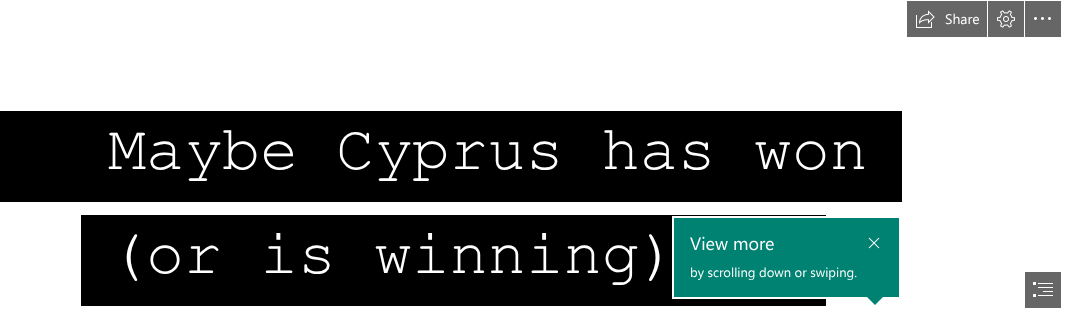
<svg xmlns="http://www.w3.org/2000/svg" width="1081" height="329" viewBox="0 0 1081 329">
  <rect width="100%" height="100%" fill="rgb(255,255,255)"/>
  <rect x="907" y="1" width="80" height="36" fill="rgb(102,102,102)"/>
  <image x="916" y="10" width="19" height="18" href="pic1.png"/>
  <text x="945" y="24" font-family="Segoe UI" font-size="14" fill="rgb(255,255,255)">Share</text>
  <rect x="988" y="1" width="36" height="36" fill="rgb(102,102,102)"/>
  <image x="997" y="10" width="18" height="18" href="pic2.png"/>
  <rect x="1025" y="1" width="36" height="36" fill="rgb(102,102,102)"/>
  <image x="1034" y="17" width="17" height="3" href="pic3.png"/>
  <rect x="0" y="111" width="902" height="91" fill="rgb(0,0,0)"/>
  <text x="108" y="169" font-family="Courier New" font-size="63.3" fill="rgb(255,255,255)">Maybe Cyprus has won</text>
  <rect x="81" y="215" width="745" height="91" fill="rgb(0,0,0)"/>
  <text x="108" y="273" font-family="Courier New" font-size="63.3" fill="rgb(255,255,255)">(or is winning)</text>
  <rect x="673" y="217" width="227" height="81" fill="rgb(0,130,114)" stroke="rgb(255,255,255)" stroke-width="2"/>
  <text x="690" y="250" font-family="Segoe UI" font-size="18" fill="rgb(255,255,255)">View more</text>
  <text x="690" y="277" font-family="Segoe UI" font-size="13" fill="rgb(255,255,255)">by scrolling down or swiping.</text>
  <image x="868" y="237" width="12" height="12" href="pic4.png"/>
  <path d="M867 297H883L875 305Z" fill="rgb(0,130,114)"/>
  <rect x="1025" y="272" width="36" height="36" fill="rgb(102,102,102)"/>
  <image x="1033" y="282" width="20" height="15" href="pic5.png"/>
</svg>
